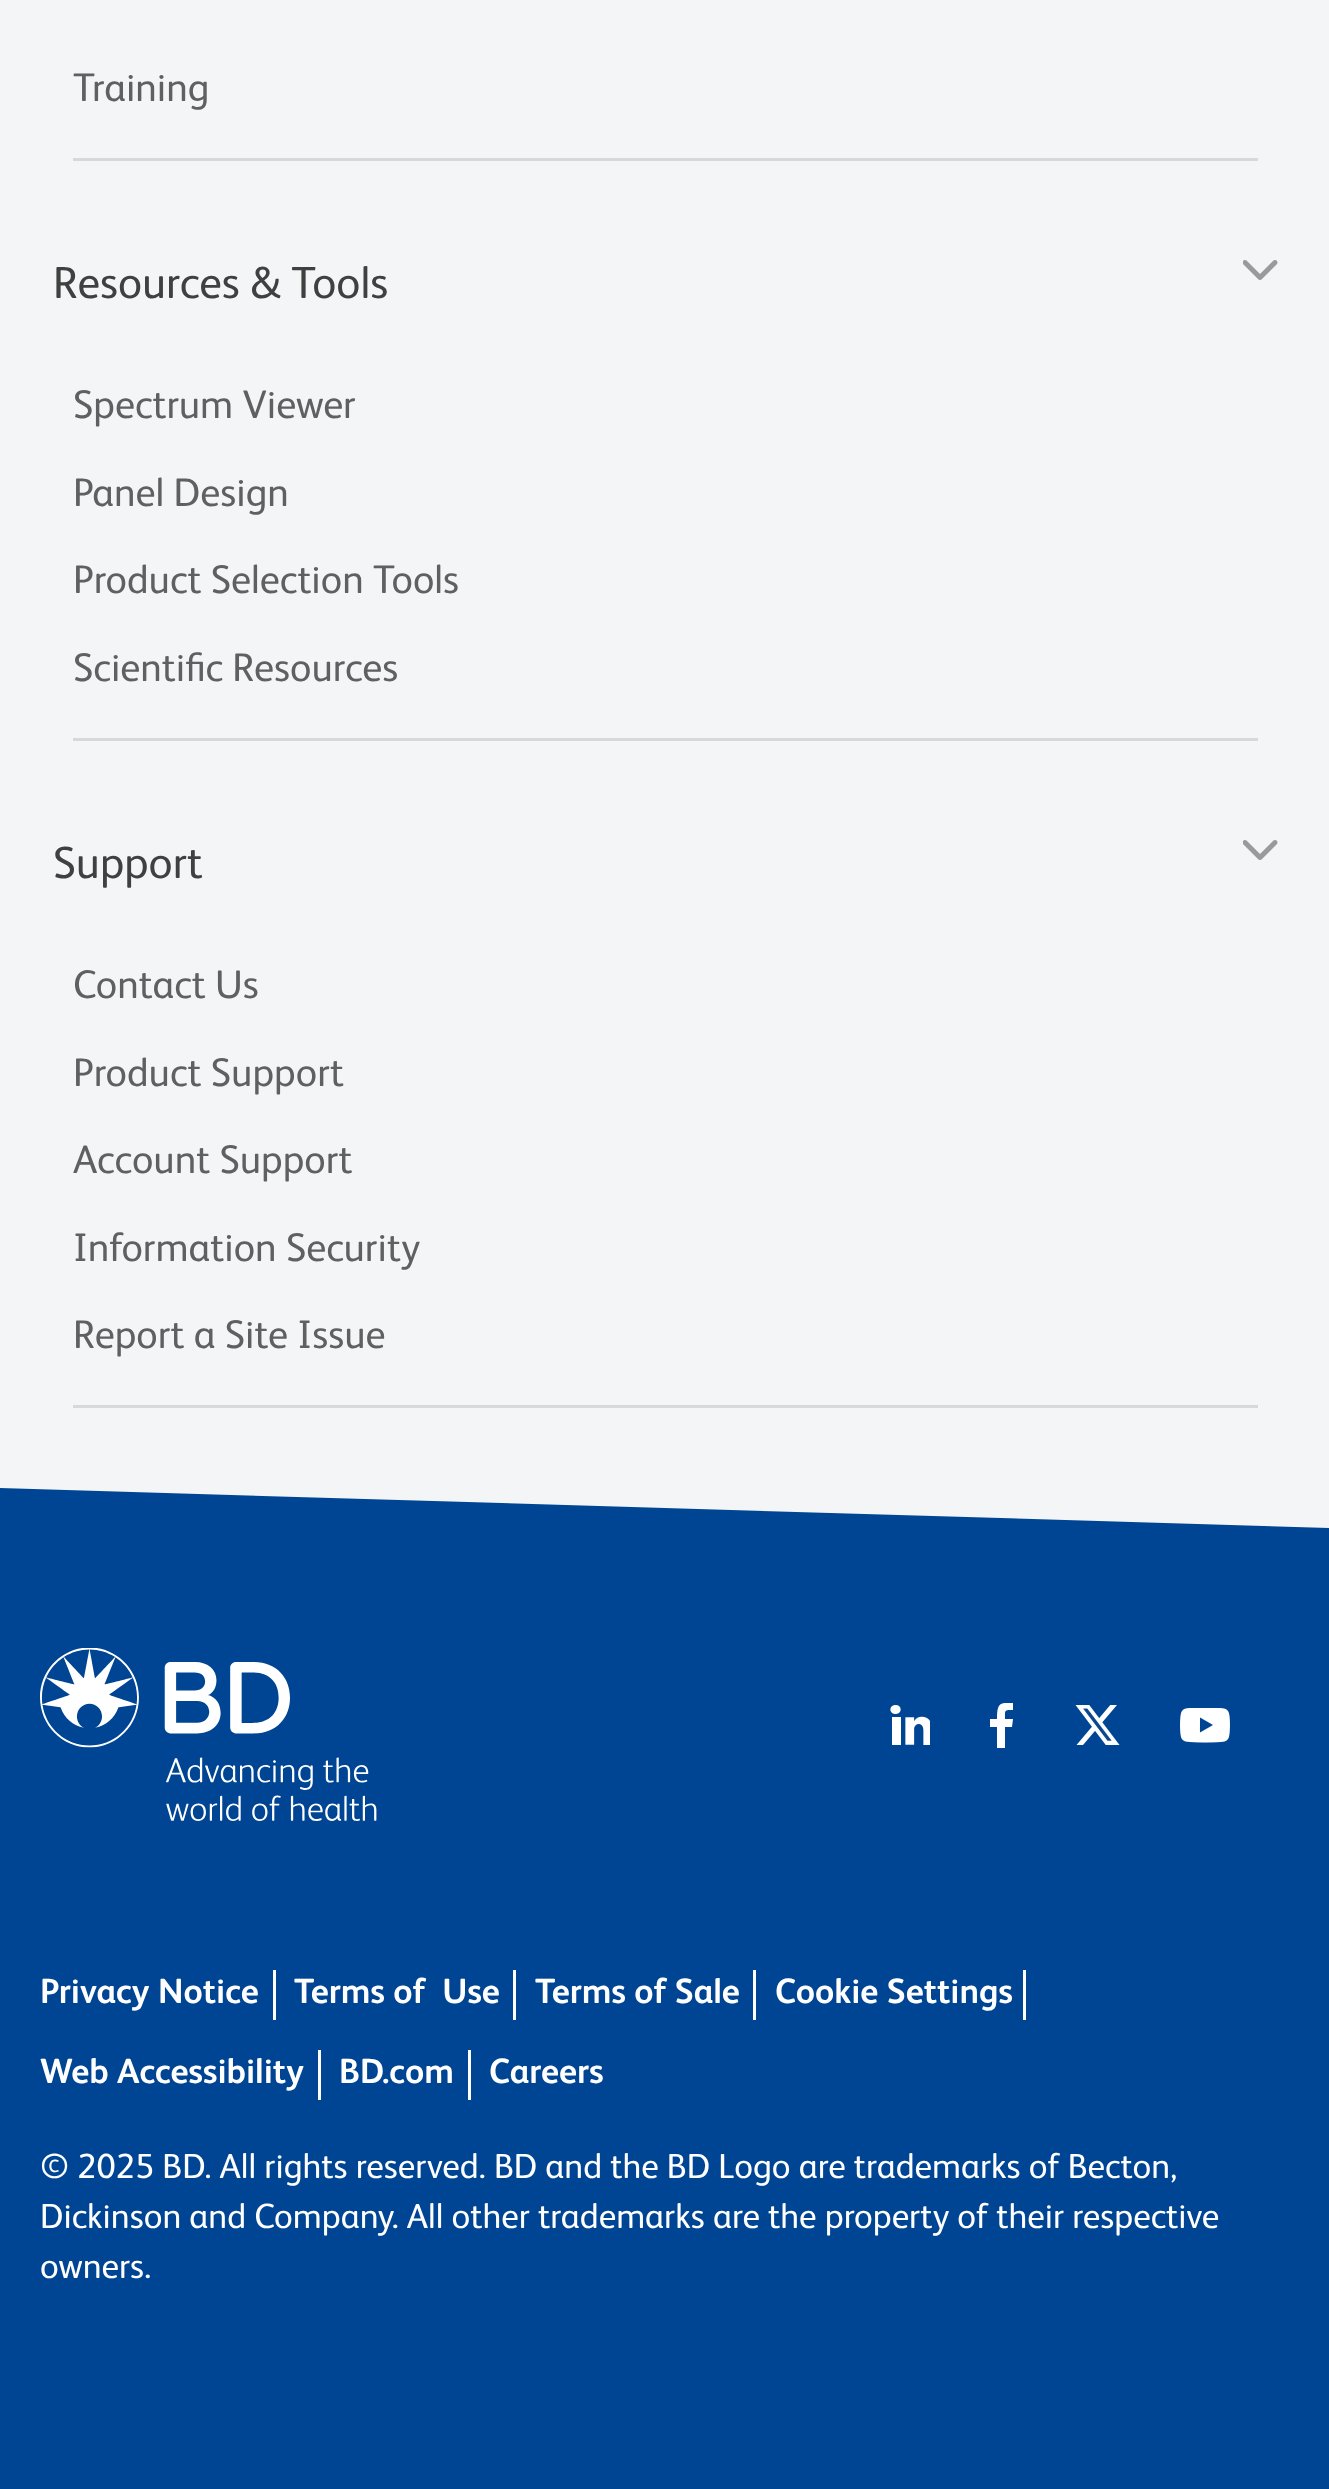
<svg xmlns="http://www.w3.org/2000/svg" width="1329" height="2489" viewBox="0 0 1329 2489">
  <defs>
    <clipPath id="clip1"><rect x="990" y="1703" width="25" height="45"/></clipPath>
  </defs>
  <rect width="100%" height="100%" fill="rgb(244,245,247)"/>
  <rect x="73" y="158" width="1185" height="3" fill="rgb(216,216,216)"/>
  <text x="73" y="101" font-family="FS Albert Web" font-size="40" fill="rgb(95,96,98)">Training</text>
  <text x="53" y="298" font-family="FS Albert Web" font-size="45" fill="rgb(64,64,65)">Resources &amp; Tools</text>
  <image x="1243" y="260" width="35" height="20" href="pic1.png"/>
  <g font-family="FS Albert Web" font-size="40" fill="rgb(95,96,98)">
    <text x="73" y="418">Spectrum Viewer</text>
    <text x="73" y="506">Panel Design</text>
    <text x="73" y="593">Product Selection Tools</text>
  </g>
  <rect x="73" y="738" width="1185" height="3" fill="rgb(216,216,216)"/>
  <text x="73" y="681" font-family="FS Albert Web" font-size="40" fill="rgb(95,96,98)">Scientific Resources</text>
  <text x="53" y="878" font-family="FS Albert Web" font-size="45" fill="rgb(64,64,65)">Support</text>
  <image x="1243" y="840" width="35" height="20" href="pic1.png"/>
  <g font-family="FS Albert Web" font-size="40" fill="rgb(95,96,98)">
    <text x="73" y="998">Contact Us</text>
    <text x="73" y="1086">Product Support</text>
    <text x="73" y="1173">Account Support</text>
    <text x="73" y="1261">Information Security</text>
  </g>
  <rect x="73" y="1405" width="1185" height="3" fill="rgb(216,216,216)"/>
  <text x="73" y="1348" font-family="FS Albert Web" font-size="40" fill="rgb(95,96,98)">Report a Site Issue</text>
  <path d="M0 1488V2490H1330V1528Z" fill="rgb(0,69,147)"/>
  <image x="40" y="1648" width="337" height="173" href="pic2.png"/>
  <image x="890" y="1705" width="40" height="40" href="pic3.png"/>
  <g clip-path="url(#clip1)">
    <path d="M1005 1748V1727H1012L1013 1719H1005C1005 1710 1004 1710 1013 1710V1703C999 1702 997 1704 997 1719H990V1727H997V1748Z" fill="rgb(255,255,255)" fill-rule="evenodd"/>
  </g>
  <image x="1075" y="1705" width="45" height="40" href="pic4.png"/>
  <image x="1180" y="1708" width="50" height="35" href="pic5.png"/>
  <rect x="273" y="1970" width="3" height="50" fill="rgb(255,255,255)"/>
  <text x="40" y="2003" font-family="FS Albert Web" font-size="35" font-weight="bold" fill="rgb(255,255,255)">Privacy Notice</text>
  <rect x="513" y="1970" width="3" height="50" fill="rgb(255,255,255)"/>
  <text x="294" y="2003" font-family="FS Albert Web" font-size="35" font-weight="bold" fill="rgb(255,255,255)" xml:space="preserve">Terms of  Use</text>
  <rect x="753" y="1970" width="3" height="50" fill="rgb(255,255,255)"/>
  <text x="535" y="2003" font-family="FS Albert Web" font-size="35" font-weight="bold" fill="rgb(255,255,255)">Terms of Sale</text>
  <rect x="1023" y="1970" width="3" height="50" fill="rgb(255,255,255)"/>
  <text x="775" y="2003" font-family="FS Albert Web" font-size="35" font-weight="bold" fill="rgb(255,255,255)">Cookie Settings</text>
  <rect x="318" y="2050" width="3" height="50" fill="rgb(255,255,255)"/>
  <text x="40" y="2083" font-family="FS Albert Web" font-size="35" font-weight="bold" fill="rgb(255,255,255)">Web Accessibility</text>
  <rect x="468" y="2050" width="3" height="50" fill="rgb(255,255,255)"/>
  <g font-family="FS Albert Web" font-size="35" font-weight="bold" fill="rgb(255,255,255)">
    <text x="339" y="2083">BD.com</text>
    <text x="489" y="2083">Careers</text>
  </g>
  <g font-family="FS Albert Web" font-size="35" fill="rgb(255,255,255)">
    <text>
      <tspan x="40" y="2178">© 2025 BD. All rights reserved. BD and the BD Logo are trademarks of Becton,</tspan>
      <tspan x="40" y="2228">Dickinson and Company. All other trademarks are the property of their respective</tspan>
      <tspan x="40" y="2278">owners.</tspan>
    </text>
  </g>
</svg>
